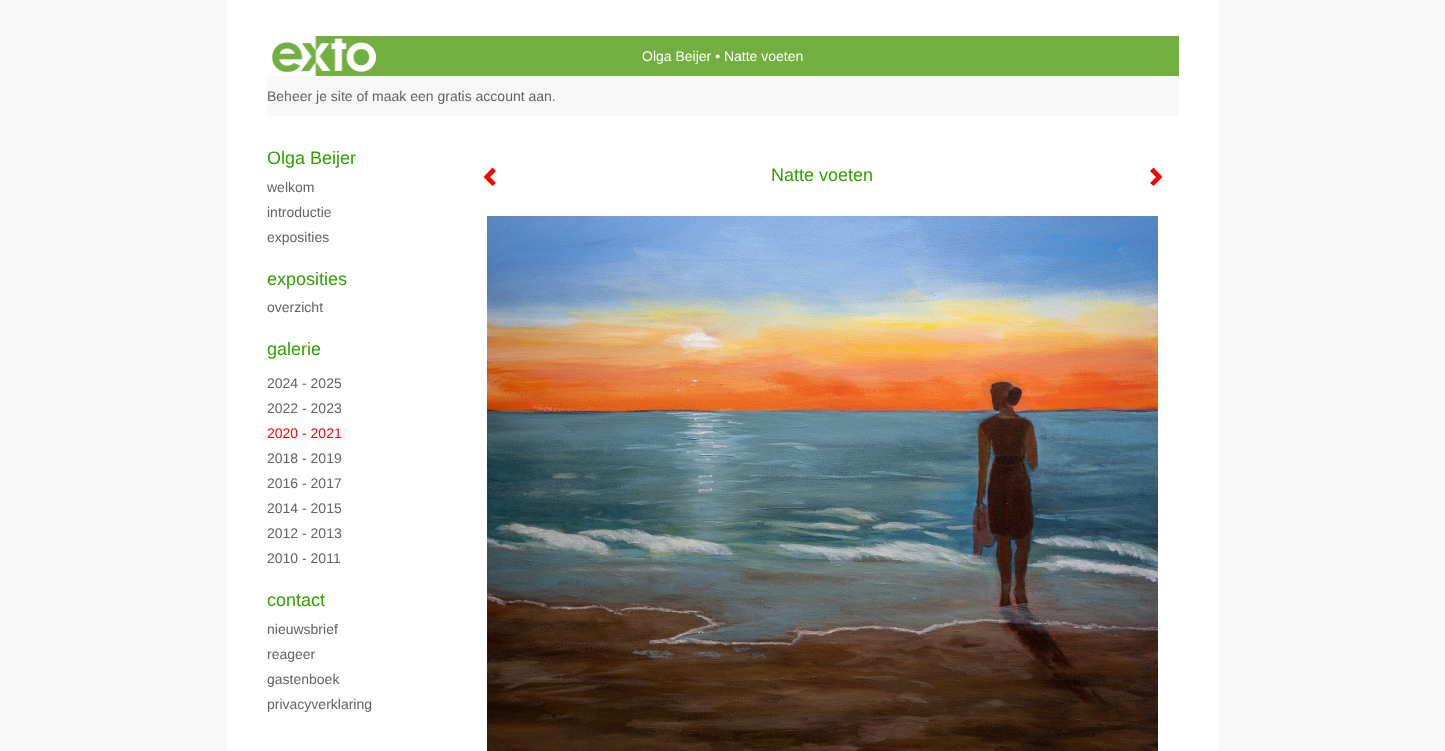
<svg xmlns="http://www.w3.org/2000/svg" width="1445" height="751" viewBox="0 0 1445 751">
  <rect width="100%" height="100%" fill="rgb(248,248,248)"/>
  <rect x="227" y="0" width="992" height="751" fill="rgb(255,255,255)"/>
  <rect x="272" y="36" width="907" height="40" fill="rgb(115,174,64)"/>
  <image x="267" y="36" width="109" height="40" href="pic1.png"/>
  <text x="642" y="61" font-family="Liberation Sans" font-size="14" fill="rgb(255,255,255)">Olga Beijer • Natte voeten</text>
  <rect x="267" y="76" width="912" height="40" fill="rgb(248,248,248)"/>
  <text x="267" y="101" font-family="Liberation Sans" font-size="14" fill="rgb(100,99,99)">Beheer je site of maak een gratis account aan.</text>
  <text x="267" y="164" font-family="Liberation Sans" font-size="18" fill="rgb(47,162,0)">Olga Beijer</text>
  <g font-family="Liberation Sans" font-size="14" fill="rgb(100,99,99)">
    <text>
      <tspan x="267" y="192">welkom</tspan>
      <tspan x="267" y="217">introductie</tspan>
      <tspan x="267" y="242">exposities</tspan>
    </text>
  </g>
  <text x="267" y="285" font-family="Liberation Sans" font-size="18" fill="rgb(47,162,0)">exposities</text>
  <text x="267" y="312" font-family="Liberation Sans" font-size="14" fill="rgb(100,99,99)">overzicht</text>
  <text x="267" y="355" font-family="Liberation Sans" font-size="18" fill="rgb(47,162,0)">galerie</text>
  <g font-family="Liberation Sans" font-size="14" fill="rgb(100,99,99)">
    <text>
      <tspan x="267" y="388">2024 - 2025</tspan>
      <tspan x="267" y="413">2022 - 2023</tspan>
    </text>
  </g>
  <text x="267" y="438" font-family="Liberation Sans" font-size="14" fill="rgb(255,0,0)">2020 - 2021</text>
  <g font-family="Liberation Sans" font-size="14" fill="rgb(100,99,99)">
    <text>
      <tspan x="267" y="463">2018 - 2019</tspan>
      <tspan x="267" y="488">2016 - 2017</tspan>
      <tspan x="267" y="513">2014 - 2015</tspan>
      <tspan x="267" y="538">2012 - 2013</tspan>
      <tspan x="267" y="563">2010 - 2011</tspan>
    </text>
  </g>
  <text x="267" y="606" font-family="Liberation Sans" font-size="18" fill="rgb(47,162,0)">contact</text>
  <g font-family="Liberation Sans" font-size="14" fill="rgb(100,99,99)">
    <text>
      <tspan x="267" y="634">nieuwsbrief</tspan>
      <tspan x="267" y="659">reageer</tspan>
      <tspan x="267" y="684">gastenboek</tspan>
      <tspan x="267" y="709">privacyverklaring</tspan>
    </text>
  </g>
  <path d="M496 171L490 177L496 183L492.5 186L483.5 177L492.5 167.5Z" fill="rgb(255,0,0)"/>
  <text x="771" y="181" font-family="Liberation Sans" font-size="18" fill="rgb(47,162,0)">Natte voeten</text>
  <path d="M1162.5 177L1153.5 186L1150 183L1156 177L1150 171L1153.5 167.5Z" fill="rgb(255,0,0)"/>
  <image x="487" y="216" width="671" height="535" href="pic2.png"/>
</svg>
